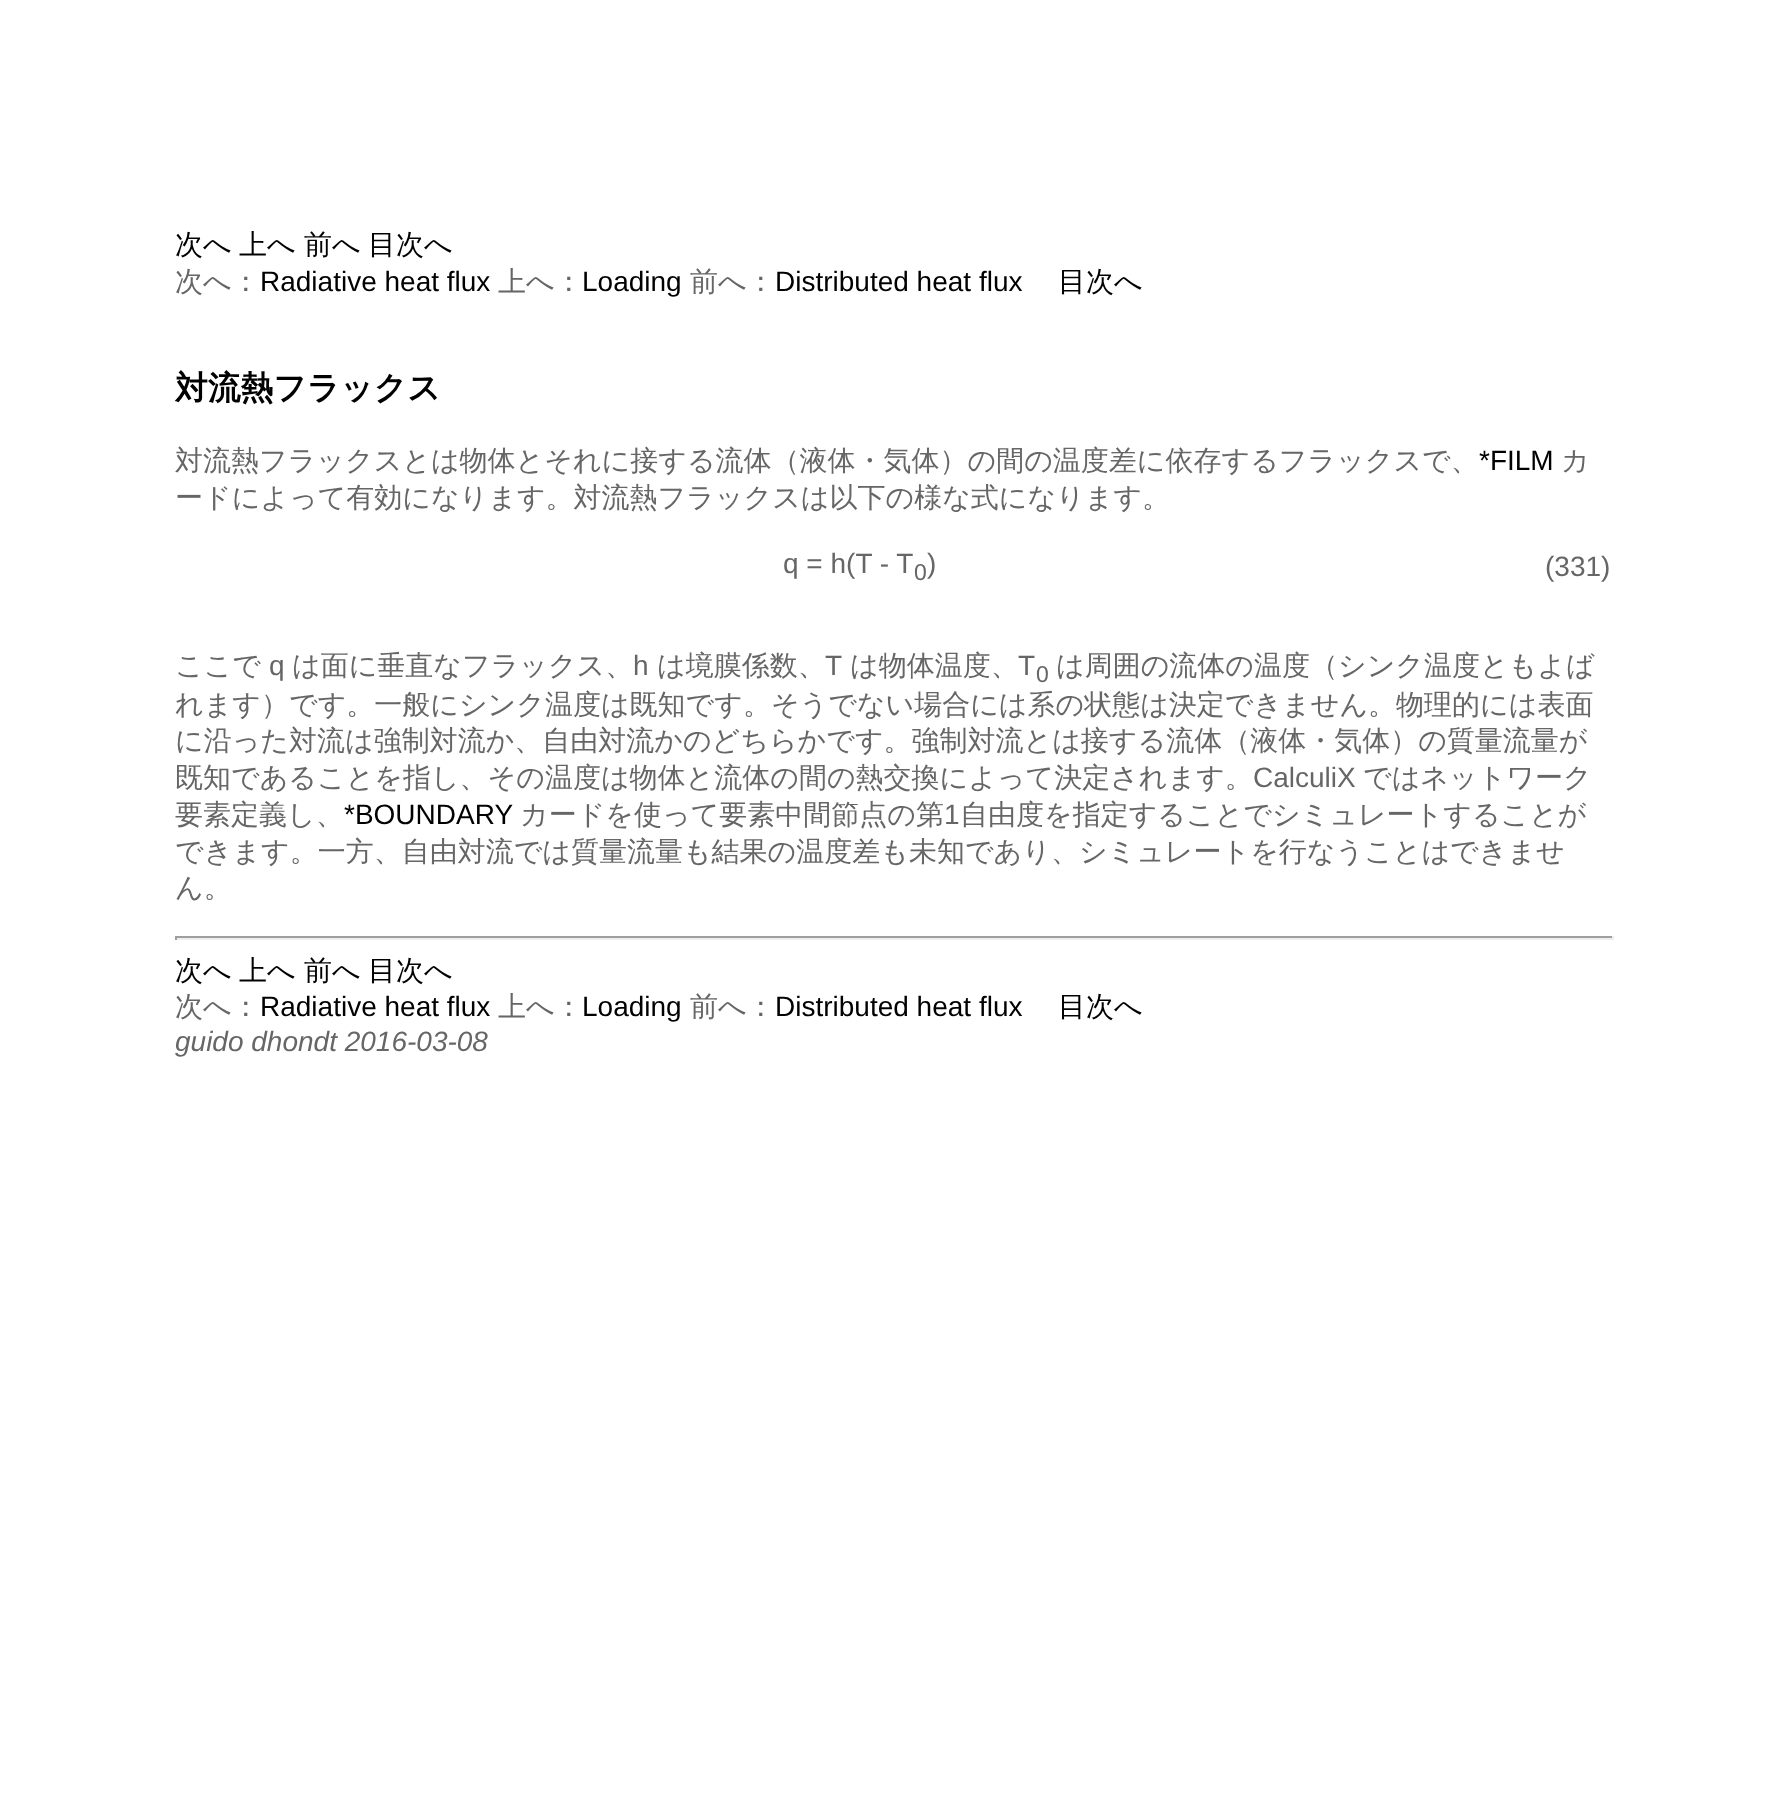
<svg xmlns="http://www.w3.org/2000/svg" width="1787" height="1815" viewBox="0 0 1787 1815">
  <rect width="100%" height="100%" fill="rgb(255,255,255)"/>
  <g font-family="WenQuanYi Zen Hei" font-size="28" font-weight="500" fill="rgb(0,0,0)">
    <text x="175" y="254">次へ</text>
    <text x="239" y="254">上へ</text>
    <text x="304" y="254">前へ</text>
    <text x="368" y="254">目次へ</text>
  </g>
  <text x="175" y="291" font-family="WenQuanYi Zen Hei" font-size="28" font-weight="500" fill="rgb(102,102,102)">次へ：</text>
  <text x="260" y="291" font-family="Liberation Sans" font-size="28" fill="rgb(0,0,0)">Radiative heat flux</text>
  <text x="498" y="291" font-family="WenQuanYi Zen Hei" font-size="28" font-weight="500" fill="rgb(102,102,102)">上へ：</text>
  <text x="582" y="291" font-family="Liberation Sans" font-size="28" fill="rgb(0,0,0)">Loading</text>
  <text x="690" y="291" font-family="WenQuanYi Zen Hei" font-size="28" font-weight="500" fill="rgb(102,102,102)">前へ：</text>
  <text x="775" y="291" font-family="Liberation Sans" font-size="28" fill="rgb(0,0,0)">Distributed heat flux</text>
  <text x="1058" y="291" font-family="WenQuanYi Zen Hei" font-size="28" font-weight="500" fill="rgb(0,0,0)">目次へ</text>
  <text x="175" y="399" font-family="WenQuanYi Zen Hei" font-size="32.75" font-weight="bold" fill="rgb(0,0,0)">対流熱フラックス</text>
  <text x="175" y="470" font-family="WenQuanYi Zen Hei" font-size="28" font-weight="500" fill="rgb(102,102,102)">対流熱フラックスとは物体とそれに接する流体（液体・気体）の間の温度差に依存するフラックスで、</text>
  <text x="1479" y="470" font-family="Liberation Sans" font-size="28" fill="rgb(0,0,0)">*FILM</text>
  <g font-family="WenQuanYi Zen Hei" font-size="28" font-weight="500" fill="rgb(102,102,102)">
    <text x="1561" y="470">カ</text>
    <text x="175" y="507">ードによって有効になります。対流熱フラックスは以下の様な式になります。</text>
  </g>
  <text x="783" y="573" font-family="Liberation Sans" font-size="28" fill="rgb(102,102,102)">q = h(T - T</text>
  <text x="914" y="580" font-family="Liberation Sans" font-size="23" fill="rgb(102,102,102)">0</text>
  <g font-family="Liberation Sans" font-size="28" fill="rgb(102,102,102)">
    <text x="927" y="573">)</text>
    <text x="1545" y="576">(331)</text>
  </g>
  <text x="175" y="675" font-family="WenQuanYi Zen Hei" font-size="28" font-weight="500" fill="rgb(102,102,102)">ここで</text>
  <text x="269" y="675" font-family="Liberation Sans" font-size="28" fill="rgb(102,102,102)">q</text>
  <text x="292" y="675" font-family="WenQuanYi Zen Hei" font-size="28" font-weight="500" fill="rgb(102,102,102)">は面に垂直なフラックス、</text>
  <text x="633" y="675" font-family="Liberation Sans" font-size="28" fill="rgb(102,102,102)">h</text>
  <text x="657" y="675" font-family="WenQuanYi Zen Hei" font-size="28" font-weight="500" fill="rgb(102,102,102)">は境膜係数、</text>
  <text x="825" y="675" font-family="Liberation Sans" font-size="28" fill="rgb(102,102,102)">T</text>
  <text x="850" y="675" font-family="WenQuanYi Zen Hei" font-size="28" font-weight="500" fill="rgb(102,102,102)">は物体温度、</text>
  <text x="1018" y="675" font-family="Liberation Sans" font-size="28" fill="rgb(102,102,102)">T</text>
  <text x="1036" y="682" font-family="Liberation Sans" font-size="23" fill="rgb(102,102,102)">0</text>
  <g font-family="WenQuanYi Zen Hei" font-size="28" font-weight="500" fill="rgb(102,102,102)">
    <text x="1056" y="675">は周囲の流体の温度（シンク温度ともよば</text>
    <text>
      <tspan x="175" y="714">れます）です。一般にシンク温度は既知です。そうでない場合には系の状態は決定できません。物理的には表面</tspan>
      <tspan x="175" y="750">に沿った対流は強制対流か、自由対流かのどちらかです。強制対流とは接する流体（液体・気体）の質量流量が</tspan>
      <tspan x="175" y="787">既知であることを指し、その温度は物体と流体の間の熱交換によって決定されます。</tspan>
    </text>
  </g>
  <text x="1253" y="787" font-family="Liberation Sans" font-size="28" fill="rgb(102,102,102)">CalculiX</text>
  <g font-family="WenQuanYi Zen Hei" font-size="28" font-weight="500" fill="rgb(102,102,102)">
    <text x="1363" y="787">ではネットワーク</text>
    <text x="175" y="824">要素定義し、</text>
  </g>
  <text x="344" y="824" font-family="Liberation Sans" font-size="28" fill="rgb(0,0,0)">*BOUNDARY</text>
  <text x="520" y="824" font-family="WenQuanYi Zen Hei" font-size="28" font-weight="500" fill="rgb(102,102,102)">カードを使って要素中間節点の第</text>
  <text x="944" y="824" font-family="Liberation Sans" font-size="28" fill="rgb(102,102,102)">1</text>
  <g font-family="WenQuanYi Zen Hei" font-size="28" font-weight="500" fill="rgb(102,102,102)">
    <text x="960" y="824">自由度を指定することでシミュレートすることが</text>
    <text>
      <tspan x="175" y="861">できます。一方、自由対流では質量流量も結果の温度差も未知であり、シミュレートを行なうことはできませ</tspan>
      <tspan x="175" y="897">ん。</tspan>
    </text>
  </g>
  <rect x="175" y="936" width="1439" height="2" fill="rgb(159,159,159)"/>
  <rect x="1612" y="936" width="2" height="4" fill="rgb(238,238,238)"/>
  <rect x="175" y="938" width="1439" height="2" fill="rgb(238,238,238)"/>
  <rect x="175" y="936" width="2" height="4" fill="rgb(159,159,159)"/>
  <g font-family="WenQuanYi Zen Hei" font-size="28" font-weight="500" fill="rgb(0,0,0)">
    <text x="175" y="980">次へ</text>
    <text x="239" y="980">上へ</text>
    <text x="304" y="980">前へ</text>
    <text x="368" y="980">目次へ</text>
  </g>
  <text x="175" y="1016" font-family="WenQuanYi Zen Hei" font-size="28" font-weight="500" fill="rgb(102,102,102)">次へ：</text>
  <text x="260" y="1016" font-family="Liberation Sans" font-size="28" fill="rgb(0,0,0)">Radiative heat flux</text>
  <text x="498" y="1016" font-family="WenQuanYi Zen Hei" font-size="28" font-weight="500" fill="rgb(102,102,102)">上へ：</text>
  <text x="582" y="1016" font-family="Liberation Sans" font-size="28" fill="rgb(0,0,0)">Loading</text>
  <text x="690" y="1016" font-family="WenQuanYi Zen Hei" font-size="28" font-weight="500" fill="rgb(102,102,102)">前へ：</text>
  <text x="775" y="1016" font-family="Liberation Sans" font-size="28" fill="rgb(0,0,0)">Distributed heat flux</text>
  <text x="1058" y="1016" font-family="WenQuanYi Zen Hei" font-size="28" font-weight="500" fill="rgb(0,0,0)">目次へ</text>
  <text x="175" y="1051" font-family="Liberation Sans" font-size="28" font-style="italic" fill="rgb(102,102,102)">guido dhondt 2016-03-08</text>
</svg>
